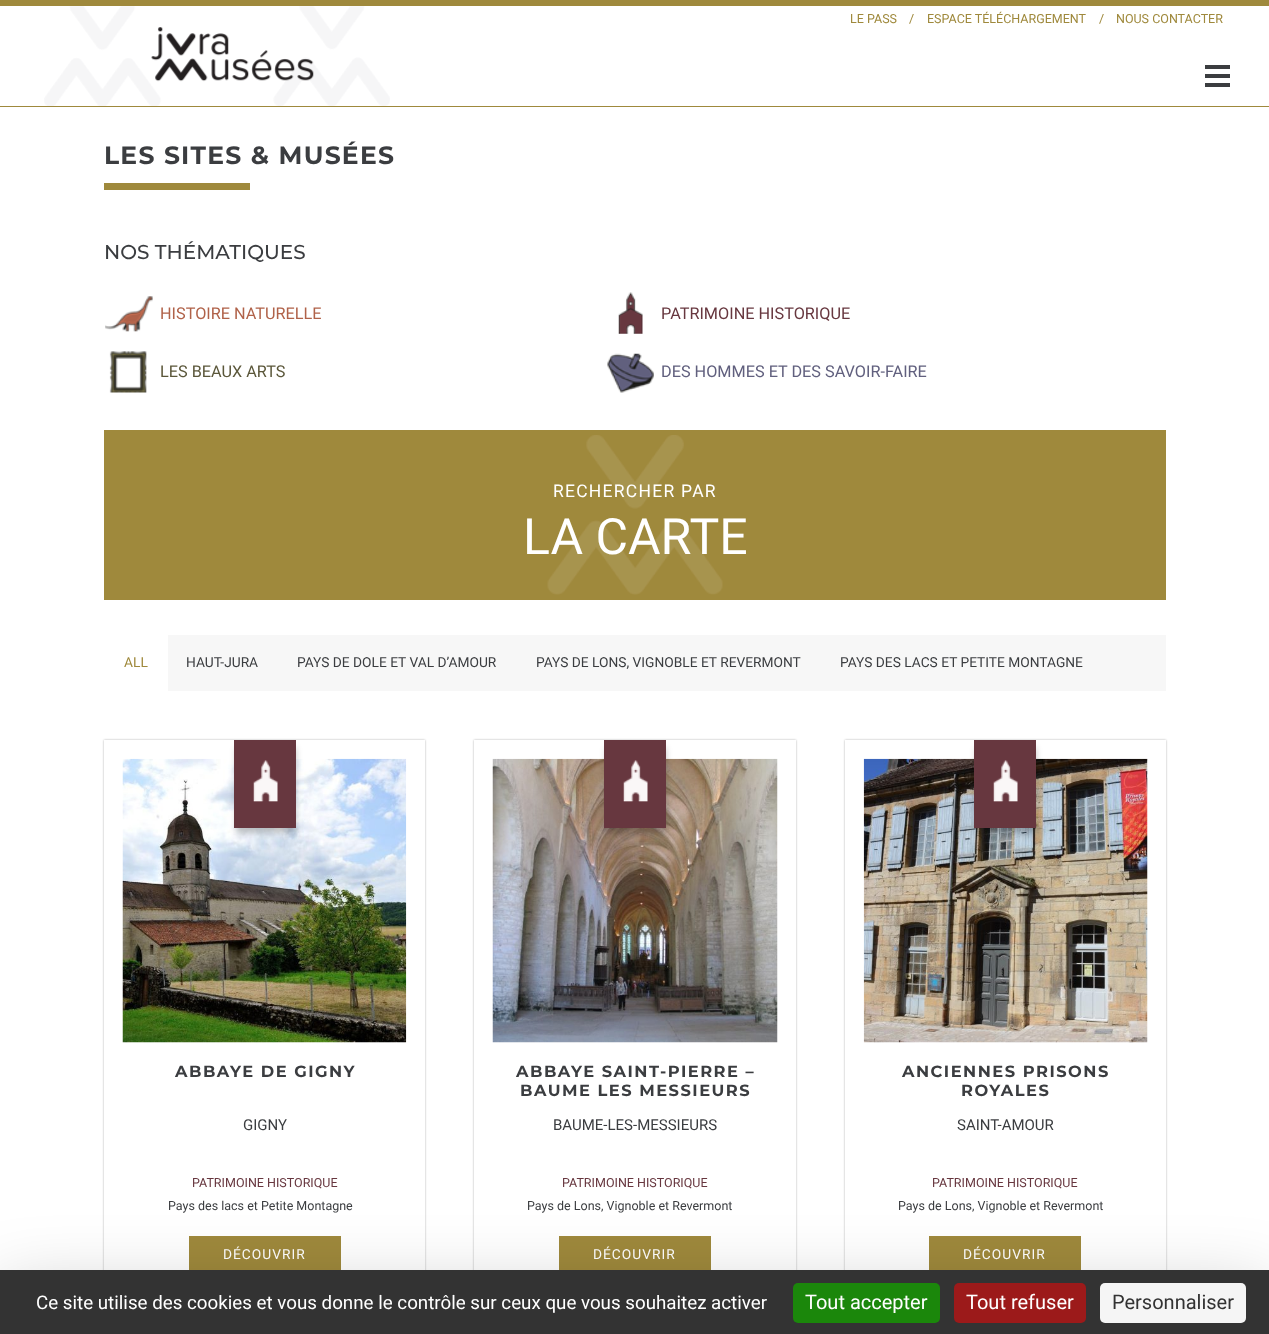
<svg xmlns="http://www.w3.org/2000/svg" width="1269" height="1334" viewBox="0 0 1269 1334">
  <defs>
    <clipPath id="clip1"><path d="M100 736H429V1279H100ZM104 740H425V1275H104Z" clip-rule="evenodd"/></clipPath>
    <clipPath id="clip2"><path d="M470 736H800V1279H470ZM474 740H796V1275H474Z" clip-rule="evenodd"/></clipPath>
    <clipPath id="clip3"><path d="M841 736H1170V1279H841ZM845 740H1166V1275H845Z" clip-rule="evenodd"/></clipPath>
  </defs>
  <rect width="100%" height="100%" fill="rgb(255,255,255)"/>
  <rect x="0" y="0" width="1269" height="6" fill="rgb(159,137,60)"/>
  <rect x="0" y="106" width="1269" height="1" fill="rgb(159,137,60)"/>
  <image x="44" y="6" width="346" height="100" href="pic1.png"/>
  <g font-family="Roboto" font-size="12.5" fill="rgb(159,137,60)">
    <text x="850" y="23">LE PASS</text>
    <text x="909" y="23">/</text>
    <text x="927" y="23">ESPACE TÉLÉCHARGEMENT</text>
    <text x="1099" y="23">/</text>
    <text x="1116" y="23">NOUS CONTACTER</text>
  </g>
  <rect x="1205" y="74" width="25" height="4" fill="rgb(59,61,64)"/>
  <rect x="1205" y="65" width="25" height="4" fill="rgb(59,61,64)"/>
  <rect x="1205" y="83" width="25" height="4" fill="rgb(59,61,64)"/>
  <text x="104" y="164" font-family="Montserrat" font-size="25" font-weight="bold" letter-spacing="1.25" fill="rgb(59,61,64)">LES SITES &amp; MUSÉES</text>
  <rect x="104" y="183" width="146" height="7" fill="rgb(159,137,60)"/>
  <text x="104" y="259" font-family="Montserrat" font-size="20" font-weight="500" fill="rgb(59,61,64)">NOS THÉMATIQUES</text>
  <image x="105" y="296" width="48" height="36" href="pic2.png"/>
  <text x="160" y="319" font-family="Roboto" font-size="16.25" fill="rgb(176,98,73)">HISTOIRE NATURELLE</text>
  <image x="618" y="292" width="25" height="42" href="pic3.png"/>
  <text x="661" y="319" font-family="Roboto" font-size="16.25" fill="rgb(103,55,63)">PATRIMOINE HISTORIQUE</text>
  <image x="109" y="351" width="38" height="42" href="pic4.png"/>
  <text x="160" y="377" font-family="Roboto" font-size="16.25" fill="rgb(91,87,58)">LES BEAUX ARTS</text>
  <image x="607" y="353" width="47" height="40" href="pic5.png"/>
  <text x="661" y="377" font-family="Roboto" font-size="16.25" fill="rgb(97,96,126)">DES HOMMES ET DES SAVOIR-FAIRE</text>
  <rect x="104" y="430" width="1062" height="170" fill="rgb(159,137,60)"/>
  <image x="547" y="435" width="176" height="160" href="pic6.png"/>
  <text x="553" y="497" font-family="Roboto" font-size="17.5" letter-spacing="1.25" fill="rgb(255,255,255)">RECHERCHER PAR</text>
  <text x="523" y="554" font-family="Roboto" font-size="50" fill="rgb(255,255,255)">LA CARTE</text>
  <rect x="168" y="635" width="998" height="56" fill="rgb(247,247,247)"/>
  <text x="124" y="667" font-family="Roboto" font-size="13.75" fill="rgb(159,137,60)">ALL</text>
  <g font-family="Roboto" font-size="13.75" fill="rgb(59,61,64)">
    <text x="186" y="667">HAUT-JURA</text>
    <text x="297" y="667">PAYS DE DOLE ET VAL D’AMOUR</text>
    <text x="536" y="667">PAYS DE LONS, VIGNOBLE ET REVERMONT</text>
    <text x="840" y="667">PAYS DES LACS ET PETITE MONTAGNE</text>
  </g>
  <g clip-path="url(#clip1)">
    <rect x="104" y="740" width="321" height="535" fill="rgba(0,0,0,0.3)" filter="blur(1px)"/>
  </g>
  <image x="122" y="758" width="285" height="285" href="pic8.png"/>
  <rect x="236" y="748" width="60" height="85" fill="rgba(0,0,0,0.24)" filter="blur(3px)"/>
  <rect x="234" y="740" width="62" height="88" fill="rgb(103,55,63)"/>
  <image x="253" y="760" width="25" height="42" href="pic7.png"/>
  <text x="175" y="1077" font-family="Montserrat" font-size="16.25" font-weight="bold" letter-spacing="1.5" fill="rgb(59,61,64)">ABBAYE DE GIGNY</text>
  <text x="243" y="1130" font-family="Roboto" font-size="15" fill="rgb(59,61,64)">GIGNY</text>
  <text x="192" y="1187" font-family="Roboto" font-size="12.5" fill="rgb(103,55,63)">PATRIMOINE HISTORIQUE</text>
  <text x="168" y="1210" font-family="Roboto" font-size="12.5" fill="rgb(59,61,64)">Pays des lacs et Petite Montagne</text>
  <rect x="189" y="1236" width="152" height="34" fill="rgb(159,137,60)"/>
  <text x="223" y="1259" font-family="Roboto" font-size="13.75" letter-spacing="1" fill="rgb(255,255,255)">DÉCOUVRIR</text>
  <g clip-path="url(#clip2)">
    <rect x="474" y="740" width="322" height="535" fill="rgba(0,0,0,0.3)" filter="blur(1px)"/>
  </g>
  <image x="492" y="758" width="286" height="285" href="pic9.png"/>
  <rect x="606" y="748" width="60" height="85" fill="rgba(0,0,0,0.24)" filter="blur(3px)"/>
  <rect x="604" y="740" width="62" height="88" fill="rgb(103,55,63)"/>
  <image x="623" y="760" width="25" height="42" href="pic7.png"/>
  <g font-family="Montserrat" font-size="16.25" font-weight="bold" letter-spacing="1.5" fill="rgb(59,61,64)">
    <text x="516" y="1077">ABBAYE SAINT-PIERRE –</text>
    <text x="520" y="1096">BAUME LES MESSIEURS</text>
  </g>
  <text x="553" y="1130" font-family="Roboto" font-size="15" fill="rgb(59,61,64)">BAUME-LES-MESSIEURS</text>
  <text x="562" y="1187" font-family="Roboto" font-size="12.5" fill="rgb(103,55,63)">PATRIMOINE HISTORIQUE</text>
  <text x="527" y="1210" font-family="Roboto" font-size="12.5" fill="rgb(59,61,64)">Pays de Lons, Vignoble et Revermont</text>
  <rect x="559" y="1236" width="152" height="34" fill="rgb(159,137,60)"/>
  <text x="593" y="1259" font-family="Roboto" font-size="13.75" letter-spacing="1" fill="rgb(255,255,255)">DÉCOUVRIR</text>
  <g clip-path="url(#clip3)">
    <rect x="845" y="740" width="321" height="535" fill="rgba(0,0,0,0.3)" filter="blur(1px)"/>
  </g>
  <image x="863" y="758" width="285" height="285" href="pic11.png"/>
  <rect x="976" y="748" width="60" height="85" fill="rgba(0,0,0,0.24)" filter="blur(3px)"/>
  <rect x="974" y="740" width="62" height="88" fill="rgb(103,55,63)"/>
  <image x="993" y="760" width="25" height="42" href="pic10.png"/>
  <g font-family="Montserrat" font-size="16.25" font-weight="bold" letter-spacing="1.5" fill="rgb(59,61,64)">
    <text x="902" y="1077">ANCIENNES PRISONS</text>
    <text x="961" y="1096">ROYALES</text>
  </g>
  <text x="957" y="1130" font-family="Roboto" font-size="15" fill="rgb(59,61,64)">SAINT-AMOUR</text>
  <text x="932" y="1187" font-family="Roboto" font-size="12.5" fill="rgb(103,55,63)">PATRIMOINE HISTORIQUE</text>
  <text x="898" y="1210" font-family="Roboto" font-size="12.5" fill="rgb(59,61,64)">Pays de Lons, Vignoble et Revermont</text>
  <rect x="929" y="1236" width="152" height="34" fill="rgb(159,137,60)"/>
  <text x="963" y="1259" font-family="Roboto" font-size="13.75" letter-spacing="1" fill="rgb(255,255,255)">DÉCOUVRIR</text>
  <rect x="0" y="1295" width="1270" height="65" fill="rgba(0,0,0,0.25)" filter="blur(37.5px)"/>
  <rect x="0" y="1270" width="1269" height="64" fill="rgb(51,51,51)"/>
  <text x="36" y="1309" font-family="Roboto" font-size="18.75" fill="rgb(255,255,255)">Ce site utilise des cookies et vous donne le contrôle sur ceux que vous souhaitez activer</text>
  <rect x="793" y="1283" width="147" height="40" rx="5" fill="rgb(27,135,11)"/>
  <text x="805" y="1309" font-family="Roboto" font-size="20" fill="rgb(255,255,255)">Tout accepter</text>
  <rect x="954" y="1283" width="132" height="40" rx="5" fill="rgb(156,26,26)"/>
  <text x="966" y="1309" font-family="Roboto" font-size="20" fill="rgb(255,255,255)">Tout refuser</text>
  <rect x="1100" y="1283" width="146" height="40" rx="5" fill="rgb(245,245,245)"/>
  <text x="1112" y="1309" font-family="Roboto" font-size="20" fill="rgb(51,51,51)">Personnaliser</text>
</svg>
